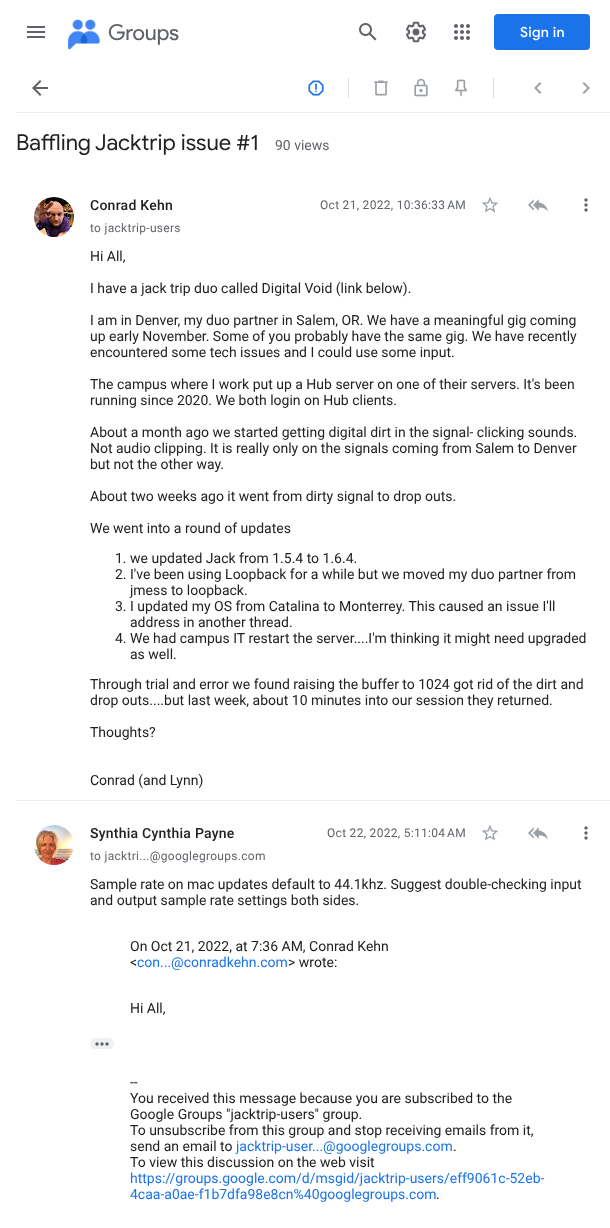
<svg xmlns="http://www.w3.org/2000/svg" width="610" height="1228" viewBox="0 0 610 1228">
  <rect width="100%" height="100%" fill="rgb(255,255,255)"/>
  <image x="27" y="26" width="18" height="12" href="pic1.png"/>
  <image x="68" y="19" width="32" height="31" href="pic2.png"/>
  <text x="108" y="40" font-family="Product Sans" font-size="22" fill="rgb(95,99,104)">Groups</text>
  <image x="359" y="23" width="18" height="18" href="pic3.png"/>
  <image x="406" y="21" width="20" height="22" href="pic4.png"/>
  <image x="454" y="24" width="16" height="16" href="pic5.png"/>
  <rect x="494" y="14" width="96" height="36" rx="4" fill="rgb(26,115,232)"/>
  <text x="520" y="37" font-family="Google Sans" font-size="14" font-weight="500" letter-spacing="0.25" fill="rgb(255,255,255)">Sign in</text>
  <rect x="16" y="112" width="594" height="1" fill="rgb(232,234,237)"/>
  <image x="32" y="80" width="16" height="16" href="pic6.png"/>
  <image x="308" y="80" width="16" height="16" href="pic7.png"/>
  <rect x="348" y="78" width="1" height="20" fill="rgb(221,221,221)"/>
  <image x="374" y="80" width="14" height="16" href="pic8.png"/>
  <image x="414" y="78" width="14" height="19" href="pic9.png"/>
  <image x="455" y="79" width="12" height="18" href="pic10.png"/>
  <rect x="493" y="78" width="1" height="20" fill="rgb(221,221,221)"/>
  <image x="534" y="82" width="8" height="12" href="pic11.png"/>
  <image x="582" y="82" width="8" height="12" href="pic12.png"/>
  <text x="16" y="150" font-family="Google Sans" font-size="22" fill="rgb(32,33,36)">Baffling Jacktrip issue #1</text>
  <text x="275" y="150" font-family="Roboto" font-size="14" fill="rgb(95,99,104)">90 views</text>
  <rect x="16" y="800" width="594" height="1" fill="rgb(232,234,237)"/>
  <image x="34" y="197" width="40" height="40" href="pic13.png"/>
  <text x="90" y="210" font-family="Roboto" font-size="14" font-weight="500" letter-spacing="0.25" fill="rgb(32,33,36)">Conrad Kehn</text>
  <text x="320" y="209" font-family="Roboto" font-size="12" letter-spacing="0.3" fill="rgb(95,99,104)">Oct 21, 2022, 10:36:33 AM</text>
  <image x="481" y="197" width="18" height="16" href="pic14.png"/>
  <image x="528" y="199" width="20" height="13" href="pic15.png"/>
  <image x="584" y="198" width="4" height="14" href="pic16.png"/>
  <text x="90" y="232" font-family="Roboto" font-size="12" letter-spacing="0.3" fill="rgb(95,99,104)">to jacktrip-users</text>
  <g font-family="Roboto" font-size="14" fill="rgb(32,33,36)">
    <text x="90" y="261">Hi All,</text>
    <text x="90" y="293">I have a jack trip duo called Digital Void (link below).</text>
    <text>
      <tspan x="90" y="325">I am in Denver, my duo partner in Salem, OR. We have a meaningful gig coming</tspan>
      <tspan x="90" y="341">up early November. Some of you probably have the same gig. We have recently</tspan>
      <tspan x="90" y="357">encountered some tech issues and I could use some input.</tspan>
    </text>
    <text>
      <tspan x="90" y="389">The campus where I work put up a Hub server on one of their servers. It's been</tspan>
      <tspan x="90" y="405">running since 2020. We both login on Hub clients.</tspan>
    </text>
    <text>
      <tspan x="90" y="437">About a month ago we started getting digital dirt in the signal- clicking sounds.</tspan>
      <tspan x="90" y="453">Not audio clipping. It is really only on the signals coming from Salem to Denver</tspan>
      <tspan x="90" y="469">but not the other way.</tspan>
    </text>
    <text x="90" y="501">About two weeks ago it went from dirty signal to drop outs.</text>
    <text x="90" y="533">We went into a round of updates</text>
    <text>
      <tspan x="115" y="563">1. we updated Jack from 1.5.4 to 1.6.4.</tspan>
      <tspan x="115" y="579">2. I've been using Loopback for a while but we moved my duo partner from</tspan>
    </text>
    <text x="130" y="595">jmess to loopback.</text>
    <text x="115" y="611">3. I updated my OS from Catalina to Monterrey. This caused an issue I'll</text>
    <text x="130" y="627">address in another thread.</text>
    <text x="115" y="643">4. We had campus IT restart the server....I'm thinking it might need upgraded</text>
    <text x="130" y="659">as well.</text>
    <text>
      <tspan x="90" y="689">Through trial and error we found raising the buffer to 1024 got rid of the dirt and</tspan>
      <tspan x="90" y="705">drop outs....but last week, about 10 minutes into our session they returned.</tspan>
    </text>
    <text x="90" y="737">Thoughts?</text>
    <text x="90" y="785">Conrad (and Lynn)</text>
  </g>
  <image x="34" y="825" width="40" height="40" href="pic17.png"/>
  <text x="90" y="838" font-family="Roboto" font-size="14" font-weight="500" letter-spacing="0.25" fill="rgb(32,33,36)">Synthia Cynthia Payne</text>
  <text x="327" y="837" font-family="Roboto" font-size="12" letter-spacing="0.3" fill="rgb(95,99,104)">Oct 22, 2022, 5:11:04 AM</text>
  <image x="481" y="825" width="18" height="16" href="pic14.png"/>
  <image x="528" y="827" width="20" height="13" href="pic15.png"/>
  <image x="584" y="826" width="4" height="14" href="pic16.png"/>
  <text x="90" y="860" font-family="Roboto" font-size="12" letter-spacing="0.3" fill="rgb(95,99,104)">to jacktri...@googlegroups.com</text>
  <g font-family="Roboto" font-size="14" fill="rgb(32,33,36)">
    <text>
      <tspan x="90" y="889">Sample rate on mac updates default to 44.1khz. Suggest double-checking input</tspan>
      <tspan x="90" y="905">and output sample rate settings both sides.</tspan>
    </text>
    <text>
      <tspan x="130" y="951">On Oct 21, 2022, at 7:36 AM, Conrad Kehn</tspan>
      <tspan x="130" y="967">&lt;</tspan>
    </text>
  </g>
  <text x="137" y="967" font-family="Roboto" font-size="14" fill="rgb(26,115,232)">con...@conradkehn.com</text>
  <g font-family="Roboto" font-size="14" fill="rgb(32,33,36)">
    <text x="288" y="967">&gt; wrote:</text>
    <text x="130" y="1013">Hi All,</text>
  </g>
  <rect x="90" y="1038" width="24" height="11" rx="5.5" fill="rgb(239,240,242)"/>
  <image x="95" y="1042" width="14" height="4" href="pic18.png"/>
  <g font-family="Roboto" font-size="14" fill="rgb(32,33,36)">
    <text>
      <tspan x="130" y="1087">--</tspan>
      <tspan x="130" y="1103">You received this message because you are subscribed to the</tspan>
      <tspan x="130" y="1119">Google Groups "jacktrip-users" group.</tspan>
      <tspan x="130" y="1135">To unsubscribe from this group and stop receiving emails from it,</tspan>
      <tspan x="130" y="1151">send an email to</tspan>
    </text>
  </g>
  <text x="236" y="1151" font-family="Roboto" font-size="14" fill="rgb(26,115,232)">jacktrip-user...@googlegroups.com</text>
  <g font-family="Roboto" font-size="14" fill="rgb(32,33,36)">
    <text x="453" y="1151">.</text>
    <text x="130" y="1167">To view this discussion on the web visit</text>
  </g>
  <g font-family="Roboto" font-size="14" fill="rgb(26,115,232)">
    <text>
      <tspan x="130" y="1183">https://groups.google.com/d/msgid/jacktrip-users/eff9061c-52eb-</tspan>
      <tspan x="130" y="1199">4caa-a0ae-f1b7dfa98e8cn%40googlegroups.com</tspan>
    </text>
  </g>
  <text x="436" y="1199" font-family="Roboto" font-size="14" fill="rgb(32,33,36)">.</text>
</svg>
